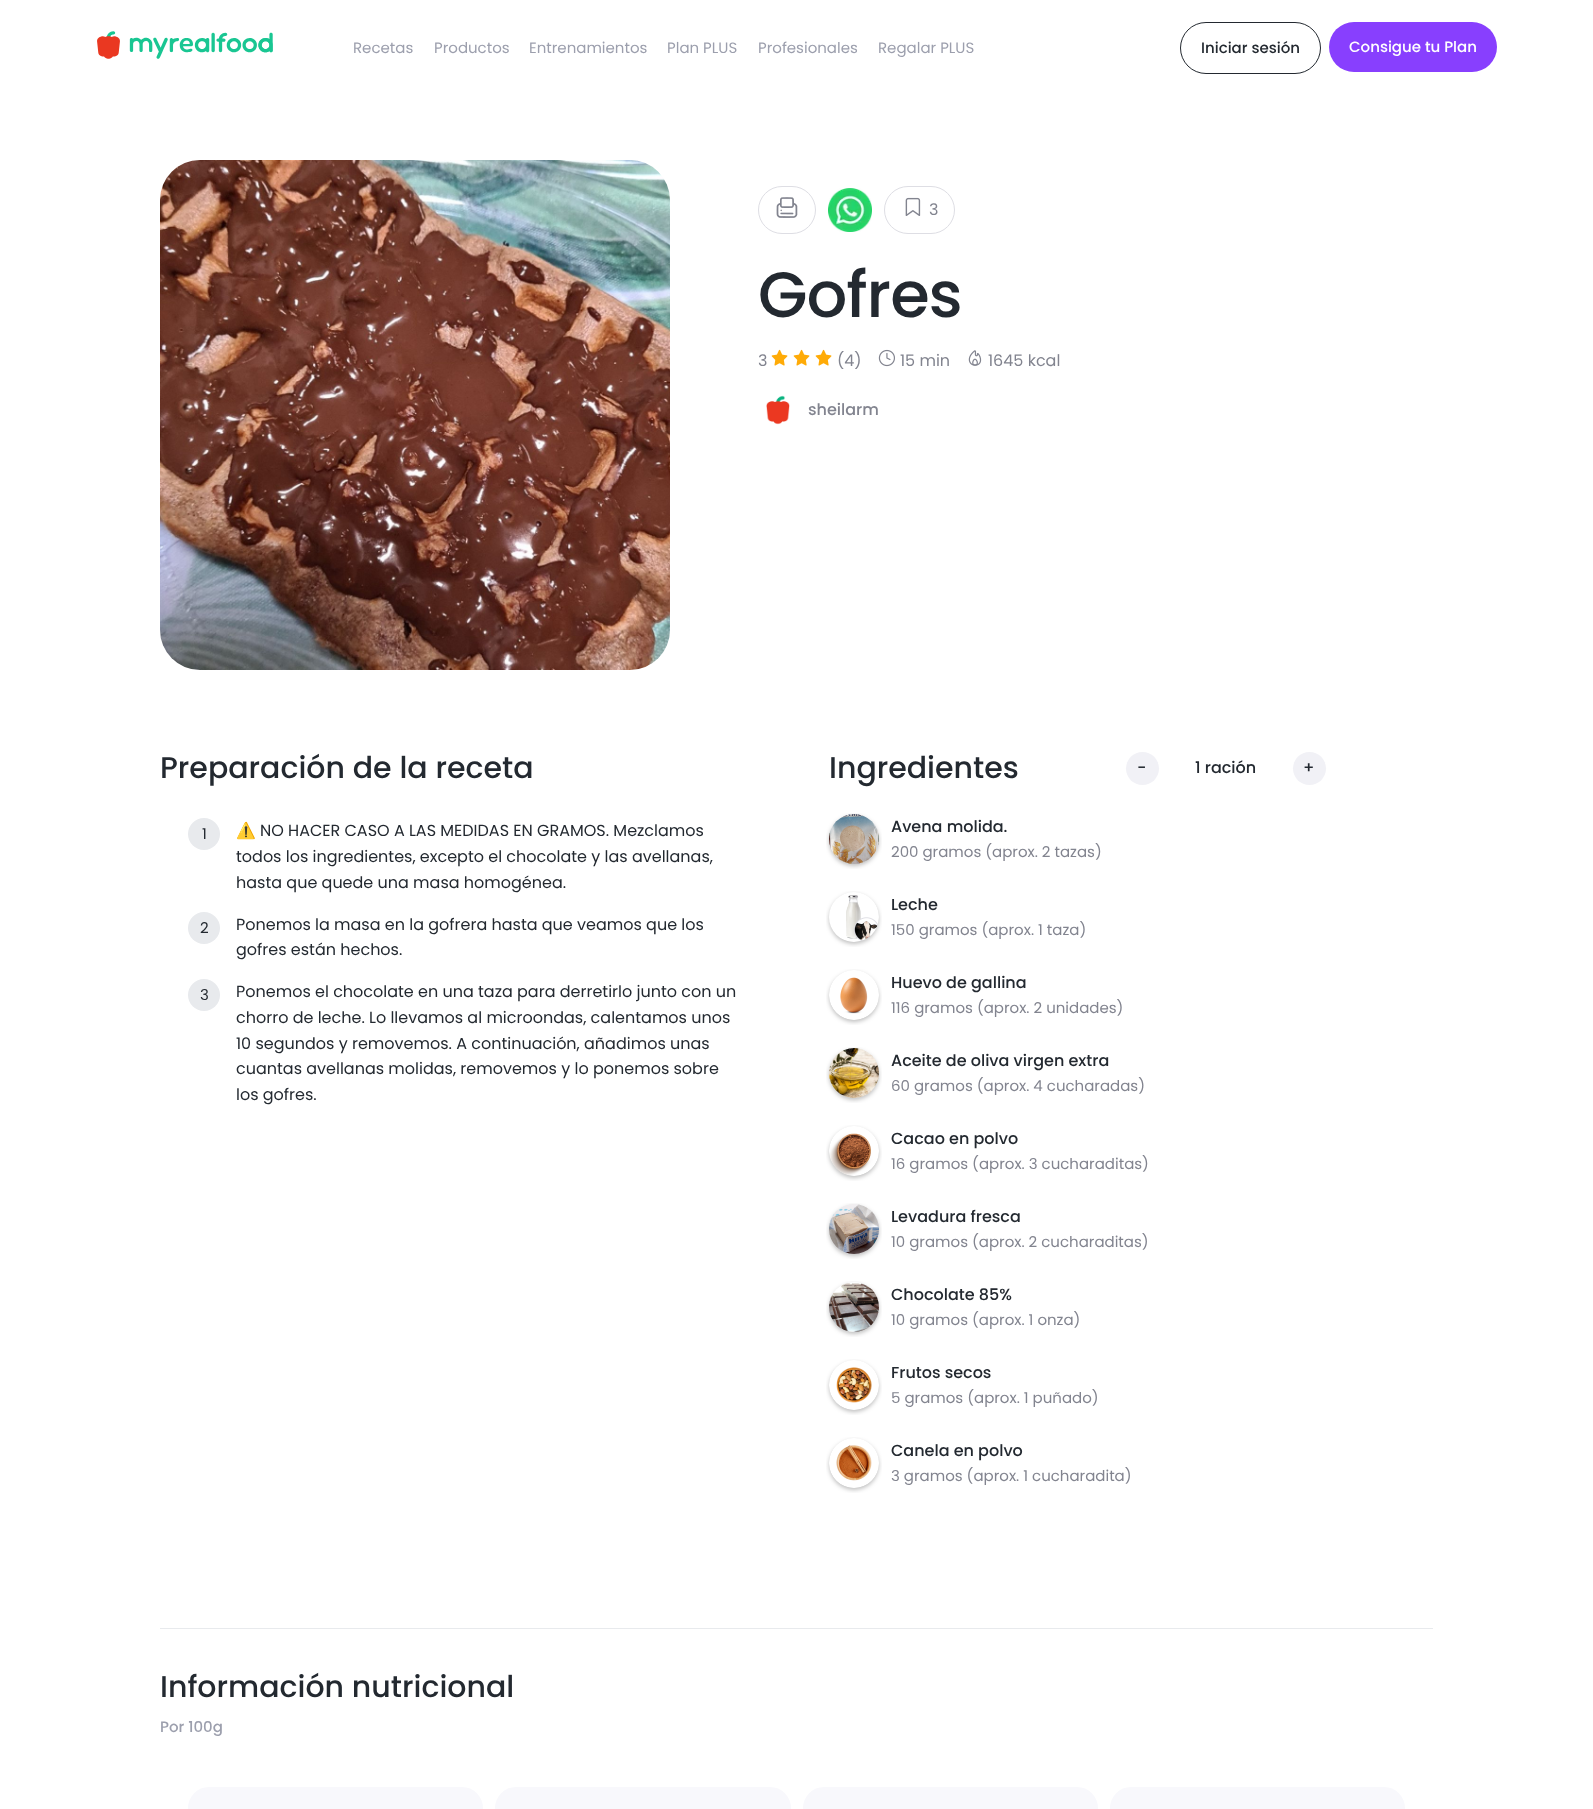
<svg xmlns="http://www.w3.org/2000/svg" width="1593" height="1809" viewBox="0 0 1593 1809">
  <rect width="100%" height="100%" fill="rgb(255,255,255)"/>
  <image x="97" y="31" width="176" height="28" href="pic1.png"/>
  <g font-family="Poppins" font-size="15" fill="rgb(156,159,173)">
    <text x="353" y="53">Recetas</text>
    <text x="434" y="53">Productos</text>
    <text x="529" y="53">Entrenamientos</text>
    <text x="667" y="53">Plan PLUS</text>
    <text x="758" y="53">Profesionales</text>
    <text x="878" y="53">Regalar PLUS</text>
  </g>
  <rect x="1180.5" y="22.5" width="140" height="51" rx="25.5" fill="none" stroke="rgb(35,41,48)"/>
  <text x="1201" y="53" font-family="Poppins" font-size="15" font-weight="500" fill="rgb(35,41,48)">Iniciar sesión</text>
  <rect x="1329" y="22" width="168" height="50" rx="25" fill="rgb(136,63,254)"/>
  <text x="1349" y="52" font-family="Poppins" font-size="15" font-weight="500" fill="rgb(255,255,255)">Consigue tu Plan</text>
  <image x="160" y="160" width="510" height="510" href="pic2.png"/>
  <rect x="758.5" y="186.5" width="57" height="47" rx="23.5" fill="none" stroke="rgb(222,222,228)"/>
  <image x="776" y="197" width="22" height="21" href="pic3.png"/>
  <image x="828" y="188" width="44" height="44" href="pic4.png"/>
  <rect x="884.5" y="186.5" width="70" height="47" rx="23.5" fill="none" stroke="rgb(222,222,228)"/>
  <image x="905" y="197" width="16" height="19" href="pic5.png"/>
  <text x="929" y="215" font-family="Poppins" font-size="16" fill="rgb(130,132,143)">3</text>
  <text x="758" y="317" font-family="Poppins" font-size="64" font-weight="500" letter-spacing="-1" fill="rgb(35,41,48)">Gofres</text>
  <text x="758" y="366" font-family="Poppins" font-size="16" fill="rgb(130,132,143)">3</text>
  <image x="771" y="349" width="17" height="17" href="pic6.png"/>
  <image x="793" y="349" width="17" height="17" href="pic6.png"/>
  <image x="815" y="349" width="17" height="17" href="pic6.png"/>
  <text x="837" y="366" font-family="Poppins" font-size="16" fill="rgb(130,132,143)">(4)</text>
  <image x="878" y="349" width="17" height="18" href="pic7.png"/>
  <text x="900" y="366" font-family="Poppins" font-size="16" fill="rgb(130,132,143)">15 min</text>
  <image x="968" y="350" width="14" height="16" href="pic8.png"/>
  <text x="988" y="366" font-family="Poppins" font-size="16" fill="rgb(130,132,143)">1645 kcal</text>
  <image x="766" y="395" width="24" height="30" href="pic9.png"/>
  <text x="808" y="415" font-family="Poppins" font-size="16" font-weight="500" fill="rgb(130,132,143)">sheilarm</text>
  <text x="160" y="778" font-family="Poppins" font-size="30" font-weight="500" fill="rgb(35,41,48)">Preparación de la receta</text>
  <circle cx="204" cy="834" r="16" fill="rgb(232,234,237)"/>
  <text x="202" y="839" font-family="Poppins" font-size="15" fill="rgb(35,41,48)">1</text>
  <text x="236" y="836" font-family="Noto Color Emoji" font-size="16" fill="rgb(35,41,48)">⚠️</text>
  <g font-family="Poppins" font-size="16" fill="rgb(35,41,48)">
    <text x="260" y="836">NO HACER CASO A LAS MEDIDAS EN GRAMOS. Mezclamos</text>
    <text>
      <tspan x="236" y="862">todos los ingredientes, excepto el chocolate y las avellanas,</tspan>
      <tspan x="236" y="888">hasta que quede una masa homogénea.</tspan>
    </text>
  </g>
  <circle cx="204" cy="928" r="16" fill="rgb(232,234,237)"/>
  <text x="200" y="933" font-family="Poppins" font-size="15" fill="rgb(35,41,48)">2</text>
  <g font-family="Poppins" font-size="16" fill="rgb(35,41,48)">
    <text>
      <tspan x="236" y="930">Ponemos la masa en la gofrera hasta que veamos que los</tspan>
      <tspan x="236" y="955">gofres están hechos.</tspan>
    </text>
  </g>
  <circle cx="204" cy="995" r="16" fill="rgb(232,234,237)"/>
  <text x="200" y="1000" font-family="Poppins" font-size="15" fill="rgb(35,41,48)">3</text>
  <g font-family="Poppins" font-size="16" fill="rgb(35,41,48)">
    <text>
      <tspan x="236" y="997">Ponemos el chocolate en una taza para derretirlo junto con un</tspan>
      <tspan x="236" y="1023">chorro de leche. Lo llevamos al microondas, calentamos unos</tspan>
      <tspan x="236" y="1049">10 segundos y removemos. A continuación, añadimos unas</tspan>
      <tspan x="236" y="1074">cuantas avellanas molidas, removemos y lo ponemos sobre</tspan>
      <tspan x="236" y="1100">los gofres.</tspan>
    </text>
  </g>
  <text x="829" y="778" font-family="Poppins" font-size="30" font-weight="500" fill="rgb(35,41,48)">Ingredientes</text>
  <circle cx="1142.5" cy="768.5" r="16.5" fill="rgb(241,241,246)"/>
  <g font-family="Poppins" font-size="16" font-weight="500" fill="rgb(35,41,48)">
    <text x="1137" y="773">-</text>
    <text x="1195" y="773">1 ración</text>
  </g>
  <circle cx="1309.5" cy="768.5" r="16.5" fill="rgb(241,241,246)"/>
  <text x="1303" y="773" font-family="Poppins" font-size="16" font-weight="500" fill="rgb(35,41,48)">+</text>
  <image x="826" y="813" width="56" height="56" href="pic10.png"/>
  <text x="891" y="832" font-family="Poppins" font-size="16" font-weight="500" fill="rgb(35,41,48)">Avena molida.</text>
  <text x="891" y="857" font-family="Poppins" font-size="15" fill="rgb(130,132,143)">200 gramos (aprox. 2 tazas)</text>
  <image x="826" y="891" width="56" height="56" href="pic11.png"/>
  <text x="891" y="910" font-family="Poppins" font-size="16" font-weight="500" fill="rgb(35,41,48)">Leche</text>
  <text x="891" y="935" font-family="Poppins" font-size="15" fill="rgb(130,132,143)">150 gramos (aprox. 1 taza)</text>
  <image x="826" y="969" width="56" height="56" href="pic12.png"/>
  <text x="891" y="988" font-family="Poppins" font-size="16" font-weight="500" fill="rgb(35,41,48)">Huevo de gallina</text>
  <text x="891" y="1013" font-family="Poppins" font-size="15" fill="rgb(130,132,143)">116 gramos (aprox. 2 unidades)</text>
  <image x="826" y="1047" width="56" height="56" href="pic13.png"/>
  <text x="891" y="1066" font-family="Poppins" font-size="16" font-weight="500" fill="rgb(35,41,48)">Aceite de oliva virgen extra</text>
  <text x="891" y="1091" font-family="Poppins" font-size="15" fill="rgb(130,132,143)">60 gramos (aprox. 4 cucharadas)</text>
  <image x="826" y="1125" width="56" height="56" href="pic14.png"/>
  <text x="891" y="1144" font-family="Poppins" font-size="16" font-weight="500" fill="rgb(35,41,48)">Cacao en polvo</text>
  <text x="891" y="1169" font-family="Poppins" font-size="15" fill="rgb(130,132,143)">16 gramos (aprox. 3 cucharaditas)</text>
  <image x="826" y="1203" width="56" height="56" href="pic15.png"/>
  <text x="891" y="1222" font-family="Poppins" font-size="16" font-weight="500" fill="rgb(35,41,48)">Levadura fresca</text>
  <text x="891" y="1247" font-family="Poppins" font-size="15" fill="rgb(130,132,143)">10 gramos (aprox. 2 cucharaditas)</text>
  <image x="826" y="1281" width="56" height="56" href="pic16.png"/>
  <text x="891" y="1300" font-family="Poppins" font-size="16" font-weight="500" fill="rgb(35,41,48)">Chocolate 85%</text>
  <text x="891" y="1325" font-family="Poppins" font-size="15" fill="rgb(130,132,143)">10 gramos (aprox. 1 onza)</text>
  <image x="826" y="1359" width="56" height="56" href="pic17.png"/>
  <text x="891" y="1378" font-family="Poppins" font-size="16" font-weight="500" fill="rgb(35,41,48)">Frutos secos</text>
  <text x="891" y="1403" font-family="Poppins" font-size="15" fill="rgb(130,132,143)">5 gramos (aprox. 1 puñado)</text>
  <image x="826" y="1437" width="56" height="56" href="pic18.png"/>
  <text x="891" y="1456" font-family="Poppins" font-size="16" font-weight="500" fill="rgb(35,41,48)">Canela en polvo</text>
  <text x="891" y="1481" font-family="Poppins" font-size="15" fill="rgb(130,132,143)">3 gramos (aprox. 1 cucharadita)</text>
  <rect x="160" y="1628" width="1273" height="1" fill="rgb(232,234,237)"/>
  <text x="160" y="1697" font-family="Poppins" font-size="30" font-weight="500" fill="rgb(35,41,48)">Información nutricional</text>
  <text x="160" y="1732" font-family="Poppins" font-size="15" font-weight="500" fill="rgb(156,159,173)">Por 100g</text>
  <rect x="188" y="1787" width="295" height="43" rx="21" fill="rgb(248,248,252)"/>
  <rect x="495" y="1787" width="296" height="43" rx="21" fill="rgb(248,248,252)"/>
  <rect x="803" y="1787" width="295" height="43" rx="21" fill="rgb(248,248,252)"/>
  <rect x="1110" y="1787" width="295" height="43" rx="21" fill="rgb(248,248,252)"/>
</svg>
